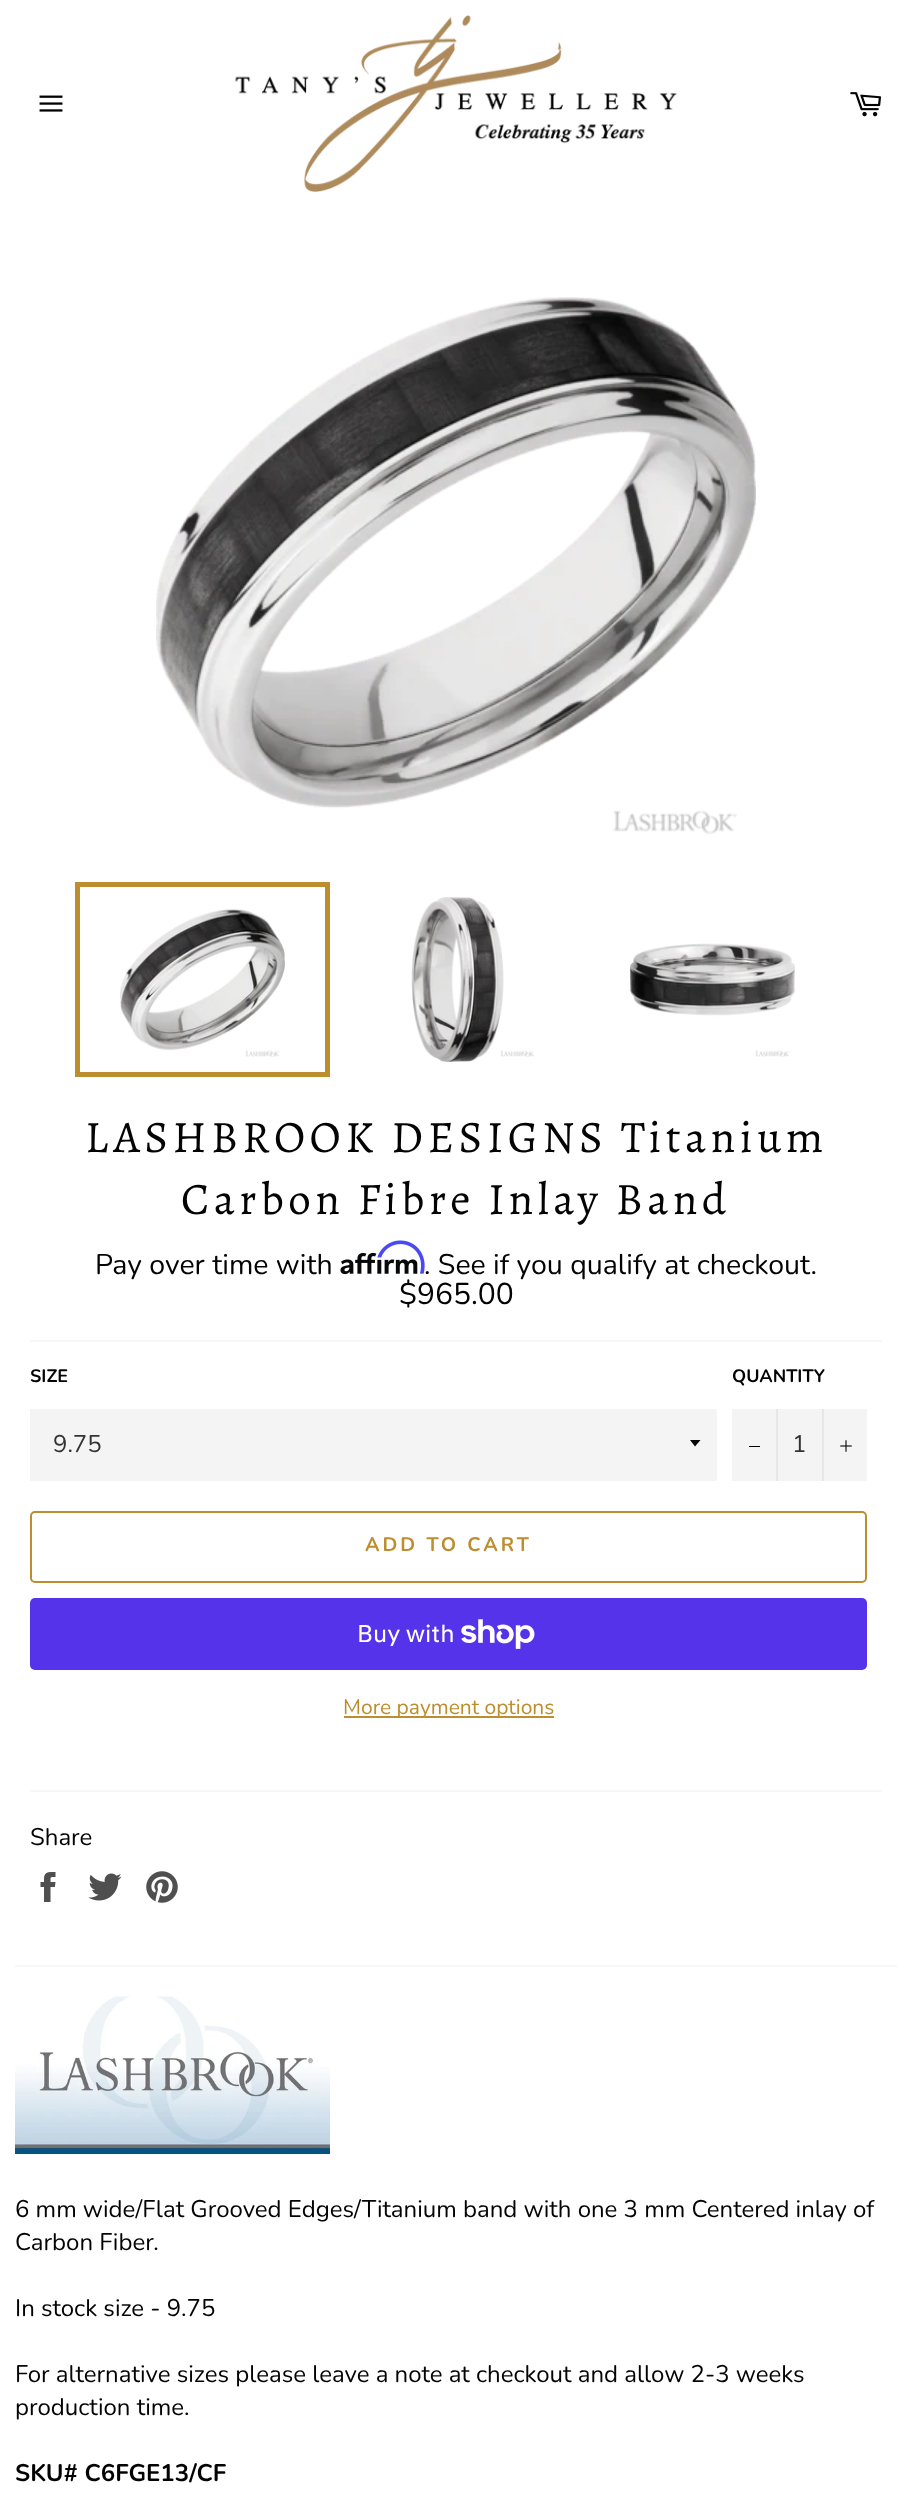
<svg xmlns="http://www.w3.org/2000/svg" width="911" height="2511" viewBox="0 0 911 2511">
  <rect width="100%" height="100%" fill="rgb(255,255,255)"/>
  <image x="39" y="95" width="24" height="17" href="pic1.png"/>
  <image x="235" y="15" width="442" height="177" href="pic2.png"/>
  <image x="850" y="92" width="31" height="25" href="pic3.png"/>
  <image x="156" y="297" width="600" height="537" href="pic4.png"/>
  <image x="120" y="909" width="165" height="148" href="pic5.png"/>
  <rect x="77.5" y="884.5" width="250" height="190" fill="none" stroke="rgb(188,142,47)" stroke-width="5"/>
  <image x="411" y="897" width="123" height="165" href="pic6.png"/>
  <image x="630" y="943" width="165" height="114" href="pic7.png"/>
  <g font-family="Alegreya" font-size="45" letter-spacing="4.5" fill="rgb(3,3,3)">
    <text x="85" y="1152">LASHBROOK DESIGNS Titanium</text>
    <text x="181" y="1214">Carbon Fibre Inlay Band</text>
  </g>
  <text x="95" y="1274" font-family="Nunito" font-size="28.5" fill="rgb(3,3,3)">Pay over time with</text>
  <image x="340" y="1252" width="78" height="23" href="pic9.png"/>
  <image x="377" y="1240" width="48" height="34" href="pic8.png"/>
  <text x="424" y="1274" font-family="Nunito" font-size="28.5" fill="rgb(3,3,3)">. See if you qualify at checkout.</text>
  <text x="399" y="1304" font-family="Nunito" font-size="30" fill="rgb(3,3,3)">$965.00</text>
  <rect x="30" y="1340" width="852" height="2" fill="rgb(247,247,247)"/>
  <text x="30" y="1382" font-family="Nunito" font-size="18" font-weight="bold" fill="rgb(3,3,3)">SIZE</text>
  <rect x="30" y="1409" width="687" height="72" fill="rgb(244,244,244)"/>
  <path d="M690 1440L695 1446.5L700.5 1440Z" fill="rgb(3,3,3)"/>
  <text x="53" y="1452" font-family="Nunito" font-size="24" fill="rgb(51,51,51)">9.75</text>
  <text x="732" y="1382" font-family="Nunito" font-size="18" font-weight="bold" fill="rgb(3,3,3)">QUANTITY</text>
  <rect x="732" y="1409" width="135" height="72" fill="rgb(244,244,244)"/>
  <rect x="776" y="1409" width="2" height="72" fill="rgb(231,231,231)"/>
  <rect x="749" y="1446" width="11" height="1" fill="rgb(3,3,3)"/>
  <text x="792" y="1452" font-family="Nunito" font-size="24" fill="rgb(51,51,51)">1</text>
  <rect x="822" y="1409" width="2" height="72" fill="rgb(231,231,231)"/>
  <image x="840" y="1440" width="12" height="12" href="pic10.png"/>
  <rect x="31" y="1512" width="835" height="70" rx="4" fill="none" stroke="rgb(188,142,47)" stroke-width="2"/>
  <text x="365" y="1551" font-family="Nunito" font-size="19.5" font-weight="bold" letter-spacing="3" fill="rgb(188,142,47)">ADD TO CART</text>
  <rect x="30" y="1598" width="837" height="72" rx="5" fill="rgb(84,51,235)"/>
  <text x="357" y="1642" font-family="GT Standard" font-size="24" fill="rgb(255,255,255)">Buy with</text>
  <image x="461" y="1619" width="74" height="30" href="pic11.png"/>
  <rect x="344" y="1716" width="210" height="2" fill="rgb(188,142,47)"/>
  <text x="343" y="1714" font-family="Nunito" font-size="21" fill="rgb(188,142,47)">More payment options</text>
  <rect x="30" y="1790" width="852" height="2" fill="rgb(247,247,247)"/>
  <text x="30" y="1845" font-family="Nunito" font-size="24" fill="rgb(3,3,3)">Share</text>
  <image x="40" y="1872" width="16" height="30" href="pic12.png"/>
  <image x="88" y="1873" width="34" height="28" href="pic13.png"/>
  <image x="146" y="1871" width="32" height="32" href="pic14.png"/>
  <rect x="15" y="1965" width="882" height="2" fill="rgb(247,247,247)"/>
  <image x="15" y="1996" width="315" height="158" href="pic15.png"/>
  <g font-family="Nunito" font-size="24" fill="rgb(3,3,3)">
    <text>
      <tspan x="15" y="2217">6 mm wide/Flat Grooved Edges/Titanium band with one 3 mm Centered inlay of</tspan>
      <tspan x="15" y="2250">Carbon Fiber.</tspan>
    </text>
    <text x="15" y="2316">In stock size - 9.75</text>
    <text>
      <tspan x="15" y="2382">For alternative sizes please leave a note at checkout and allow 2-3 weeks</tspan>
      <tspan x="15" y="2415">production time.</tspan>
    </text>
  </g>
  <text x="15" y="2481" font-family="Nunito" font-size="24" font-weight="bold" fill="rgb(3,3,3)">SKU# C6FGE13/CF</text>
</svg>
